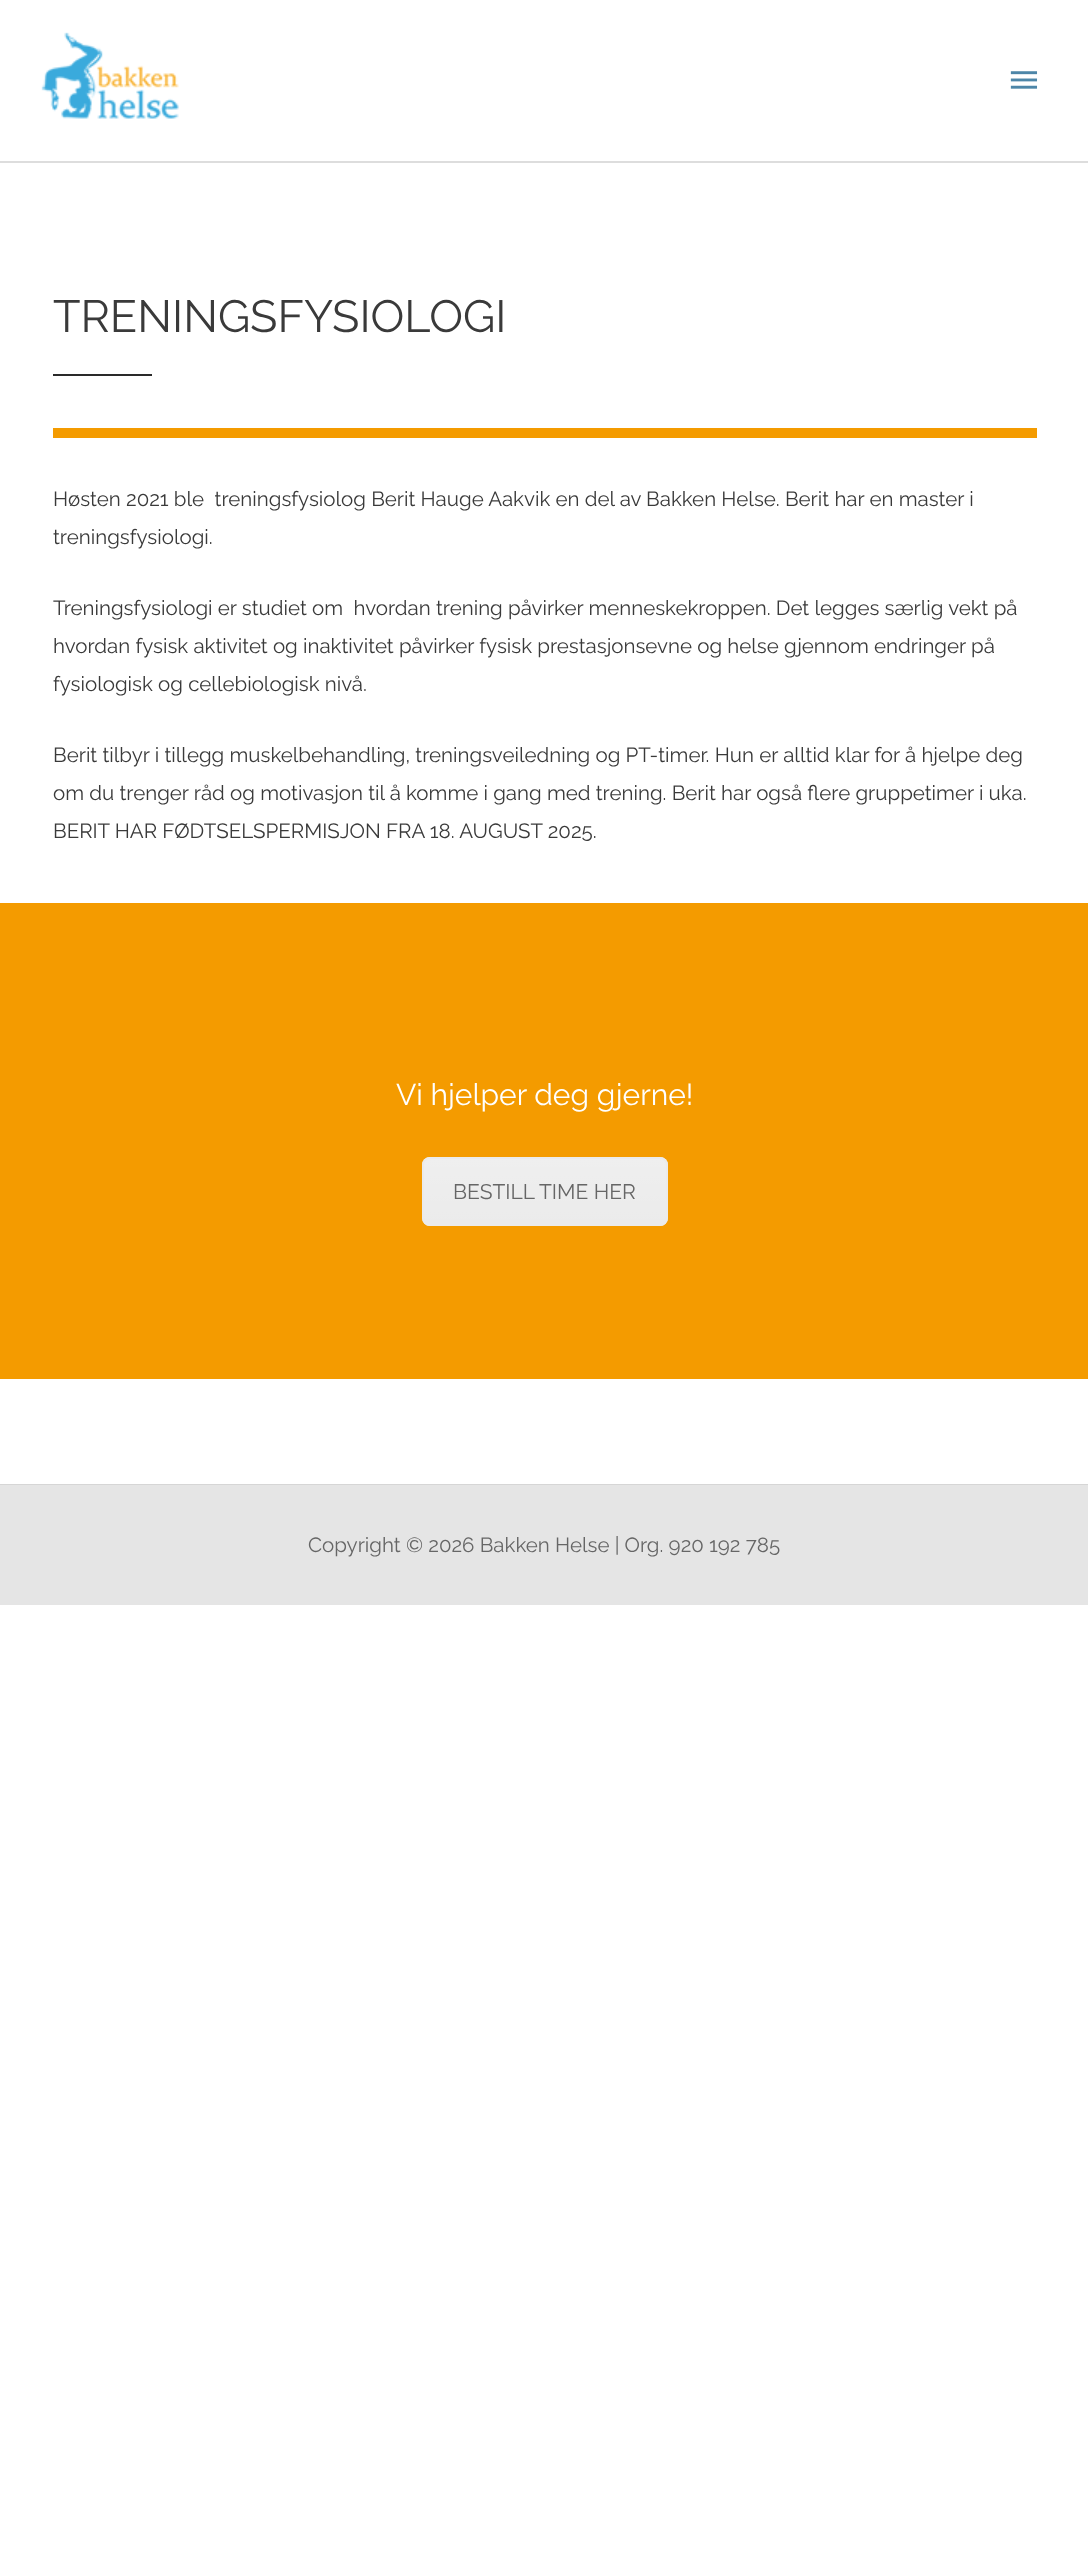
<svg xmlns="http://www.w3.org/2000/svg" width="1088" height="2568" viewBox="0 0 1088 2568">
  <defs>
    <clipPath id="clip1"><rect x="422" y="1157" width="246" height="69" rx="8"/></clipPath>
    <linearGradient id="g1" gradientUnits="userSpaceOnUse" x1="545" y1="1158" x2="545" y2="1224"><stop offset="0" stop-color="rgb(255,255,255)" stop-opacity="0.2"/><stop offset="1" stop-color="rgb(255,255,255)" stop-opacity="0.01"/></linearGradient>
  </defs>
  <rect width="100%" height="100%" fill="rgb(255,255,255)"/>
  <rect x="0" y="161" width="1088" height="2" fill="rgb(221,221,221)"/>
  <image x="41" y="32" width="138" height="87" href="pic1.png"/>
  <image x="1010" y="71" width="28" height="18" href="pic2.png"/>
  <text x="53" y="332" font-family="Raleway" font-size="45" font-weight="100" fill="rgb(58,58,58)">TRENINGSFYSIOLOGI</text>
  <rect x="53" y="374" width="99" height="2" fill="rgb(42,42,42)"/>
  <rect x="53" y="428" width="984" height="10" fill="rgb(244,155,0)"/>
  <g font-family="Raleway" font-size="20.5" font-weight="100" fill="rgb(58,58,58)">
    <text xml:space="preserve"><tspan x="53" y="506">Høsten 2021 ble  treningsfysiolog Berit Hauge Aakvik en del av Bakken Helse. Berit har en master i</tspan><tspan x="53" y="544">treningsfysiologi.</tspan></text>
    <text xml:space="preserve"><tspan x="53" y="615">Treningsfysiologi er studiet om  hvordan trening påvirker menneskekroppen. Det legges særlig vekt på</tspan><tspan x="53" y="653">hvordan fysisk aktivitet og inaktivitet påvirker fysisk prestasjonsevne og helse gjennom endringer på</tspan><tspan x="53" y="691">fysiologisk og cellebiologisk nivå.</tspan></text>
    <text>
      <tspan x="53" y="762">Berit tilbyr i tillegg muskelbehandling, treningsveiledning og PT-timer. Hun er alltid klar for å hjelpe deg</tspan>
      <tspan x="53" y="800">om du trenger råd og motivasjon til å komme i gang med trening. Berit har også flere gruppetimer i uka.</tspan>
      <tspan x="53" y="838">BERIT HAR FØDTSELSPERMISJON FRA 18. AUGUST 2025.</tspan>
    </text>
  </g>
  <rect x="0" y="903" width="1088" height="476" fill="rgb(244,155,0)"/>
  <text x="396" y="1105" font-family="Raleway" font-size="30" font-weight="100" fill="rgb(255,255,255)">Vi hjelper deg gjerne!</text>
  <rect x="422" y="1157" width="246" height="69" rx="8" fill="rgb(235,235,235)"/>
  <g clip-path="url(#clip1)">
    <rect x="422" y="1158" width="246" height="62" fill="url(#g1)"/>
  </g>
  <rect x="423" y="1158" width="244" height="67" rx="7" fill="none" stroke="rgb(235,235,235)" stroke-width="2"/>
  <text x="453" y="1199" font-family="Raleway" font-size="21" font-weight="100" fill="rgb(102,102,102)">BESTILL TIME HER</text>
  <rect x="0" y="1484" width="1088" height="1" fill="rgb(214,214,214)"/>
  <rect x="0" y="1485" width="1088" height="120" fill="rgb(229,229,229)"/>
  <text x="308" y="1552" font-family="Raleway" font-size="20.5" font-weight="100" fill="rgb(102,102,102)">Copyright © 2026 Bakken Helse | Org. 920 192 785</text>
</svg>
